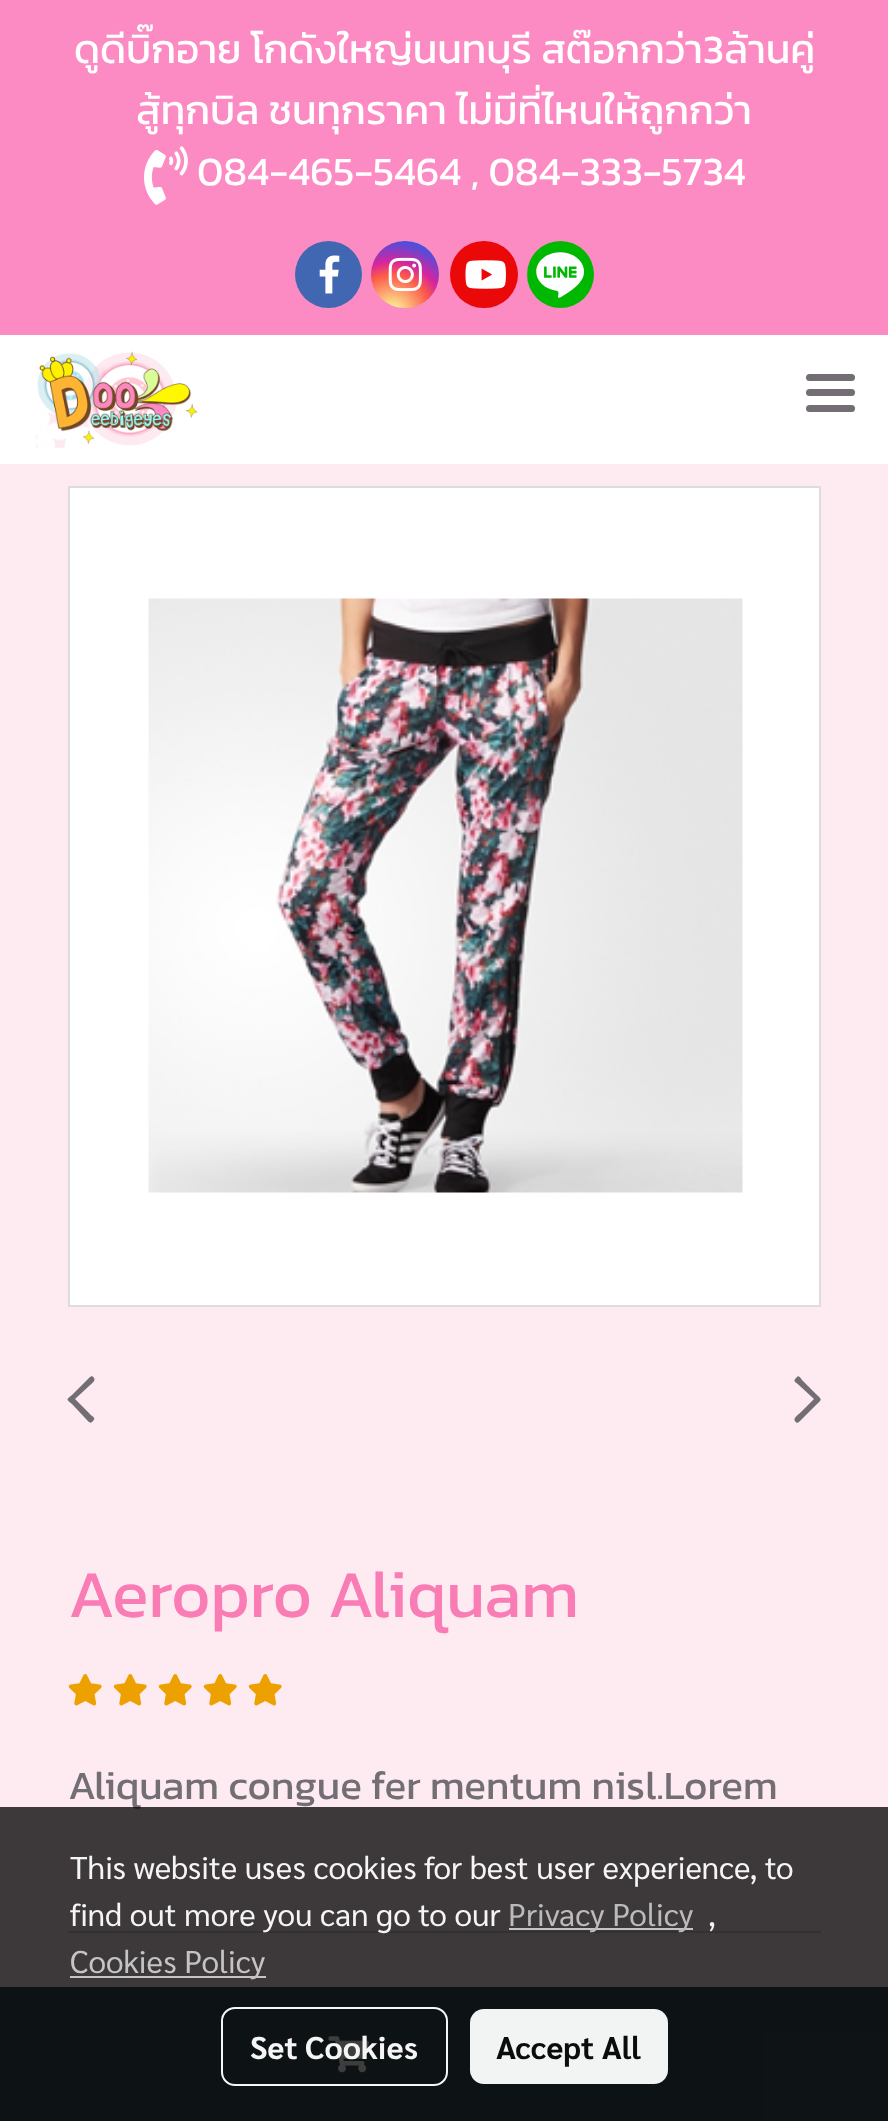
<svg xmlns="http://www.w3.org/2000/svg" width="888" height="2121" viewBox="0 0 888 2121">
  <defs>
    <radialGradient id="g1" gradientUnits="userSpaceOnUse" cx="392" cy="313" r="86"><stop offset="0" stop-color="rgb(253,244,151)"/><stop offset="0.05" stop-color="rgb(253,244,151)"/><stop offset="0.45" stop-color="rgb(253,89,73)"/><stop offset="0.6" stop-color="rgb(214,36,159)"/><stop offset="0.9" stop-color="rgb(40,90,235)"/></radialGradient>
  </defs>
  <rect width="100%" height="100%" fill="rgb(254,235,241)"/>
  <rect x="0" y="335" width="888" height="129" fill="rgb(255,255,255)"/>
  <rect x="0" y="0" width="888" height="335" fill="rgb(252,139,196)"/>
  <g font-family="Kanit" font-size="40.5" fill="rgb(255,255,255)">
    <text x="74" y="63">ดูดีบิ๊กอาย โกดังใหญ่นนทบุรี สต๊อกกว่า3ล้านคู่</text>
    <text x="136" y="124">สู้ทุกบิล ชนทุกราคา ไม่มีที่ไหนให้ถูกกว่า</text>
  </g>
  <image x="144" y="146" width="44" height="59" href="pic1.png"/>
  <text x="197" y="185" font-family="Kanit" font-size="40.5" fill="rgb(255,255,255)">084-465-5464 , 084-333-5734</text>
  <circle cx="328.5" cy="274.5" r="33.5" fill="rgb(66,103,178)"/>
  <image x="319" y="255" width="21" height="39" href="pic2.png"/>
  <rect x="371" y="241" width="68" height="67" rx="33.5" fill="url(#g1)"/>
  <image x="388" y="257" width="34" height="35" href="pic3.png"/>
  <rect x="450" y="241" width="68" height="67" rx="33.5" fill="rgb(235,8,8)"/>
  <image x="465" y="260" width="41" height="29" href="pic4.png"/>
  <circle cx="560.5" cy="274.5" r="33.5" fill="rgb(0,184,0)"/>
  <image x="527" y="241" width="58" height="67" href="pic5.png"/>
  <image x="36" y="351" width="162" height="97" href="pic6.png"/>
  <rect x="806" y="389" width="49" height="7" rx="3.5" fill="rgb(115,110,116)"/>
  <rect x="806" y="374" width="49" height="7" rx="3.5" fill="rgb(115,110,116)"/>
  <rect x="806" y="405" width="49" height="7" rx="3.5" fill="rgb(115,110,116)"/>
  <rect x="69" y="487" width="751" height="819" fill="rgb(255,255,255)" stroke="rgb(221,221,221)" stroke-width="2"/>
  <image x="148" y="598" width="595" height="595" href="pic7.png"/>
  <path d="M92 1422C97 1417 93 1418 88 1412L75 1399L88 1387C92 1383 98 1380 92 1376L90 1377L72 1395C66 1400 66 1399 72 1404L86 1419C88 1421 90 1424 92 1422Z" fill="rgb(115,110,116)"/>
  <path d="M797 1377C792 1382 795 1381 801 1387L814 1399L801 1412C797 1416 791 1419 797 1423L799 1422L817 1404C822 1399 822 1400 817 1395L802 1380C801 1378 798 1375 797 1377Z" fill="rgb(115,110,116)"/>
  <text x="68" y="1617" font-family="Kanit" font-size="67.5" fill="rgb(249,124,180)">Aeropro Aliquam</text>
  <image x="68" y="1674" width="34" height="32" href="pic8.png"/>
  <image x="113" y="1674" width="34" height="32" href="pic8.png"/>
  <image x="158" y="1674" width="34" height="32" href="pic8.png"/>
  <image x="203" y="1674" width="34" height="32" href="pic8.png"/>
  <image x="248" y="1674" width="34" height="32" href="pic8.png"/>
  <text x="68" y="1799" font-family="Kanit" font-size="40.5" fill="rgb(115,110,116)">Aliquam congue fer mentum nisl.Lorem</text>
  <rect x="68" y="1931" width="753" height="2" fill="rgb(204,204,204)"/>
  <rect x="0" y="1987" width="888" height="134" fill="rgb(57,82,87)"/>
  <image x="328" y="2036" width="41" height="37" href="pic9.png"/>
  <rect x="0" y="1807" width="888" height="314" fill="rgba(0,0,0,0.76)"/>
  <g font-family="Sarabun" font-size="31.5" fill="rgb(245,245,245)">
    <text>
      <tspan x="70" y="1879">This website uses cookies for best user experience, to</tspan>
      <tspan x="70" y="1926">find out more you can go to our</tspan>
    </text>
  </g>
  <rect x="509" y="1928" width="184" height="2" fill="rgb(197,196,196)"/>
  <text x="508" y="1926" font-family="Sarabun" font-size="31.5" fill="rgb(187,187,187)">Privacy Policy</text>
  <text x="708" y="1926" font-family="Sarabun" font-size="31.5" fill="rgb(245,245,245)">,</text>
  <rect x="70" y="1976" width="196" height="2" fill="rgb(197,196,196)"/>
  <text x="70" y="1973" font-family="Sarabun" font-size="31.5" fill="rgb(197,196,196)">Cookies Policy</text>
  <rect x="222" y="2008" width="225" height="77" rx="13" fill="none" stroke="rgb(245,246,247)" stroke-width="2"/>
  <text x="250" y="2059" font-family="Sarabun" font-size="31.5" font-weight="bold" fill="rgb(245,245,245)">Set Cookies</text>
  <rect x="470" y="2009" width="198" height="75" rx="14" fill="rgba(255,255,255,0.95)"/>
  <text x="496" y="2059" font-family="Sarabun" font-size="31.5" font-weight="bold" fill="rgb(12,12,12)">Accept All</text>
</svg>
